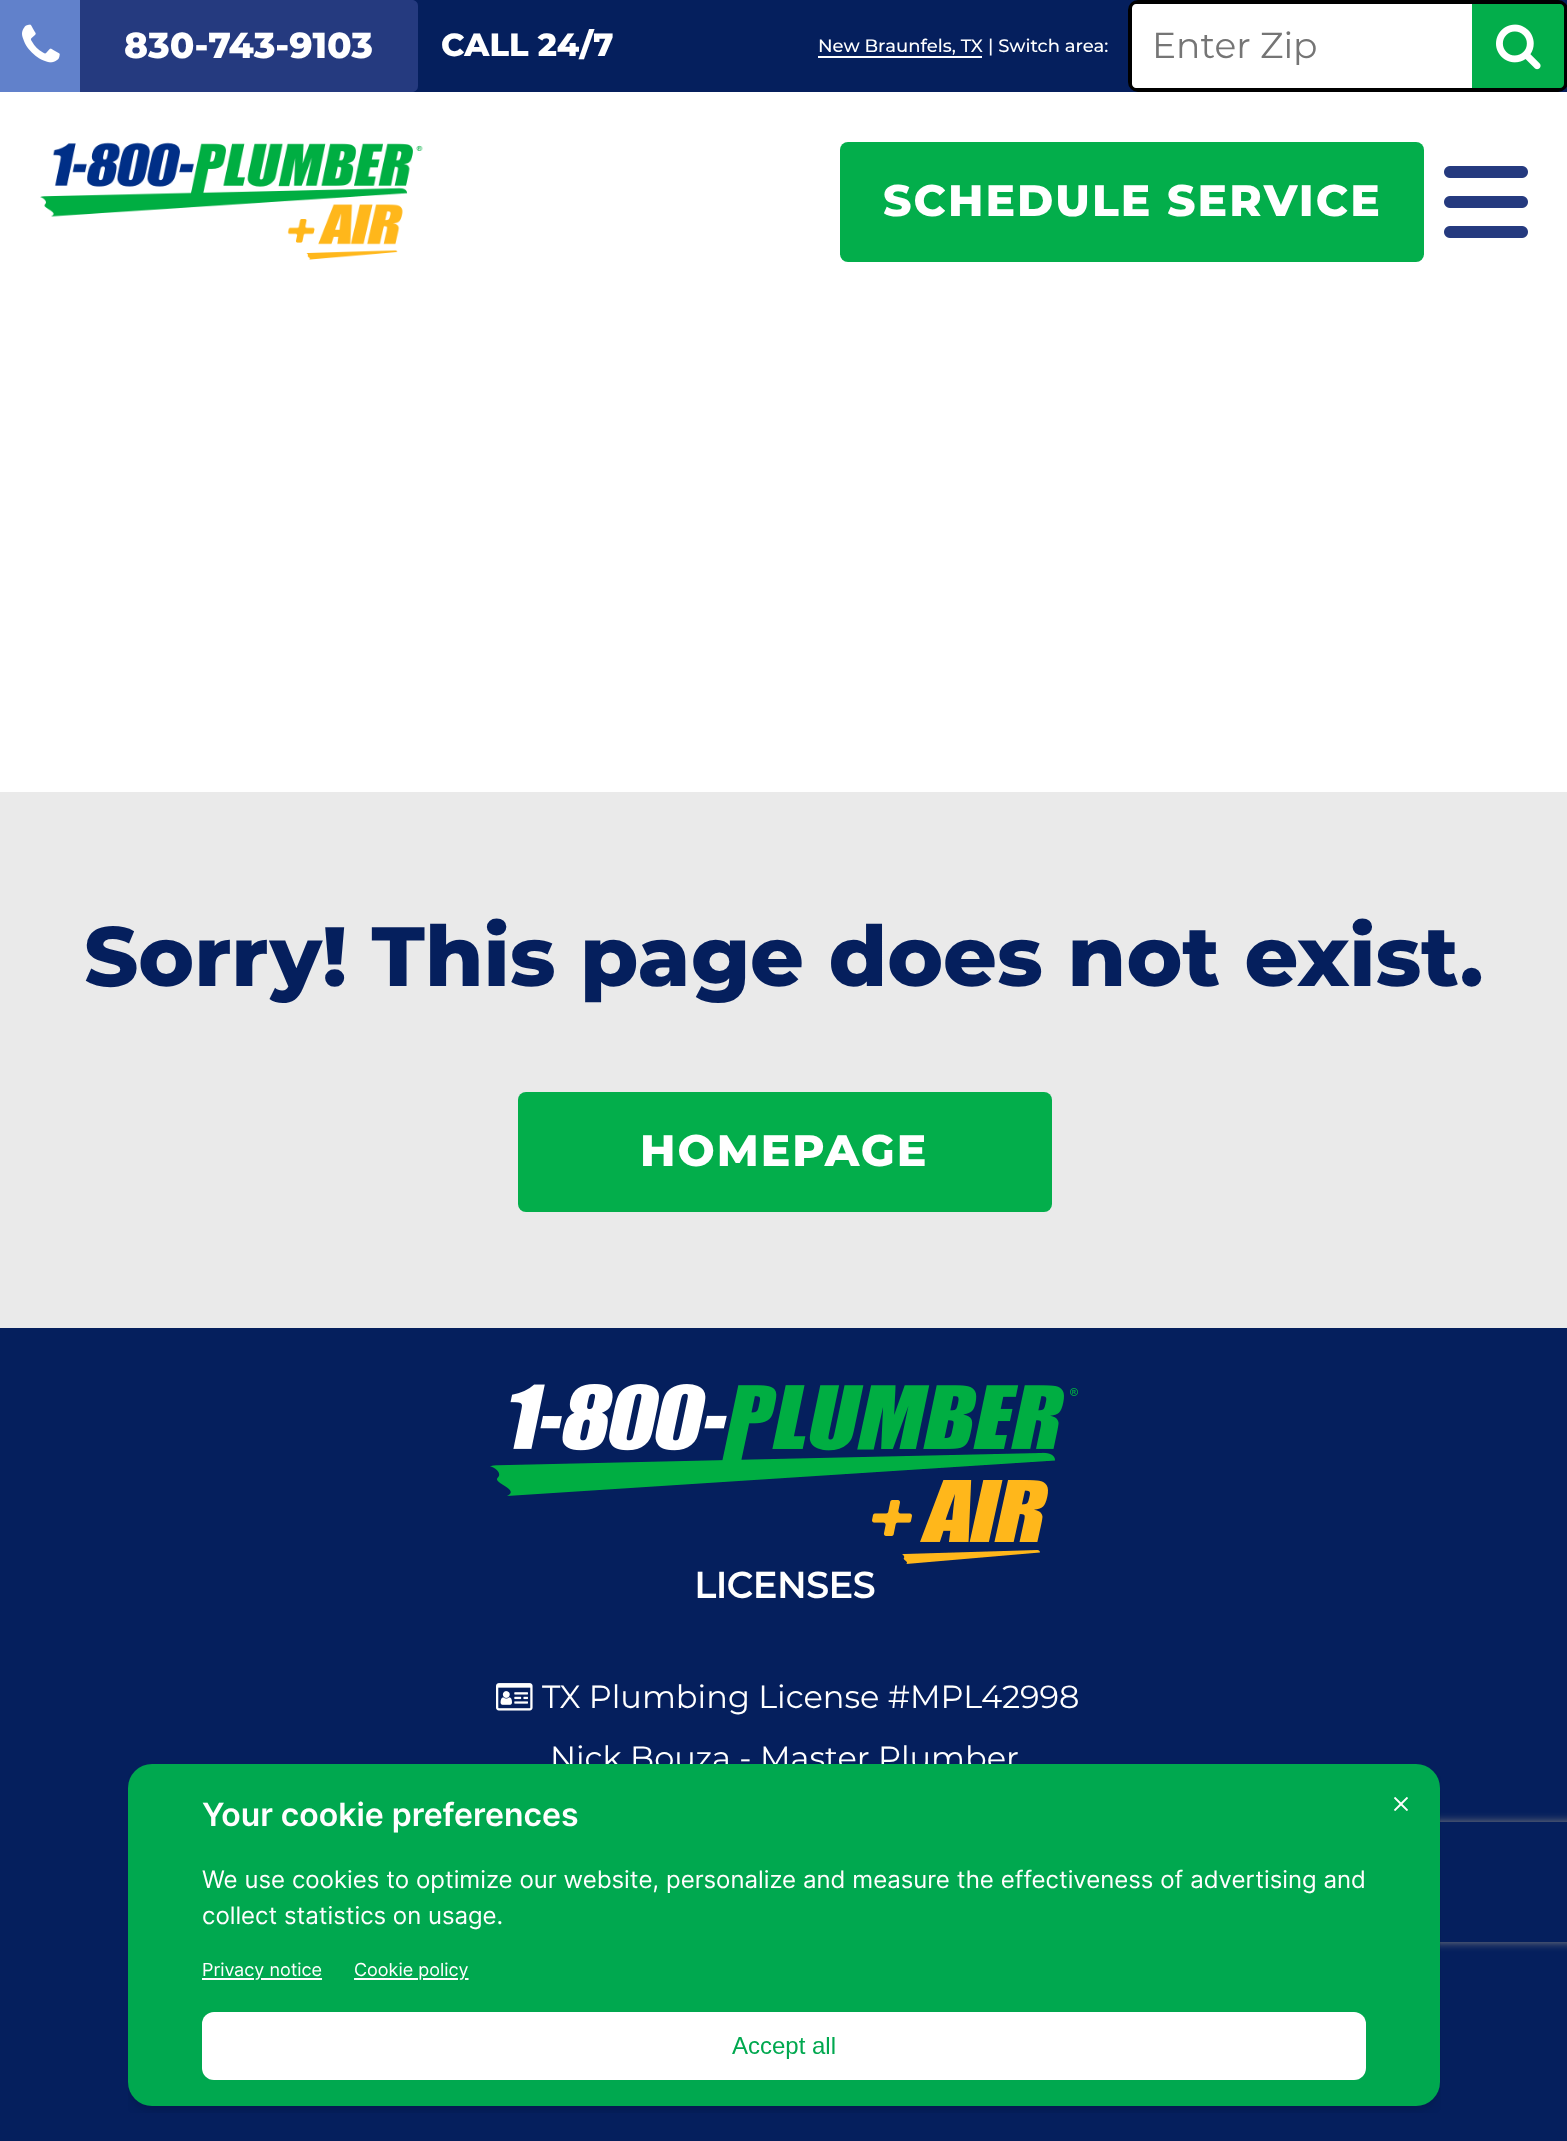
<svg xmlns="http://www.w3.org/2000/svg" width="1567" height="2141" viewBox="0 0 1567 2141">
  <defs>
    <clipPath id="clip1"><path d="M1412 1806H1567V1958H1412ZM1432 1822H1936C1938 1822 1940 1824 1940 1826V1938C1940 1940 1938 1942 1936 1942H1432C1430 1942 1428 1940 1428 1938V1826C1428 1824 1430 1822 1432 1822Z" clip-rule="evenodd"/></clipPath>
  </defs>
  <rect width="100%" height="100%" fill="rgb(255,255,255)"/>
  <rect x="412" y="0" width="1155" height="92" fill="rgb(5,31,93)"/>
  <rect x="0" y="0" width="80" height="92" fill="rgb(97,129,203)"/>
  <image x="22" y="24" width="38" height="39" href="pic1.png"/>
  <path d="M80 0H412C415.5 0 418 2.5 418 6V86C418 89.5 415.5 92 412 92H80Z" fill="rgb(37,58,127)"/>
  <text x="124" y="58" font-family="Montserrat" font-size="36" font-weight="800" fill="rgb(255,255,255)">830-743-9103</text>
  <text x="441" y="56" font-family="Montserrat" font-size="32" font-weight="800" fill="rgb(255,255,255)">CALL 24/7</text>
  <text x="818" y="52" font-family="Montserrat" font-size="18" font-weight="500" fill="rgb(255,255,255)">New Braunfels, TX</text>
  <rect x="818" y="56" width="164" height="2" fill="rgb(255,255,255)"/>
  <text x="988" y="52" font-family="Montserrat" font-size="18" font-weight="500" fill="rgb(255,255,255)">| Switch area:</text>
  <rect x="1130" y="2" width="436" height="88" rx="8" fill="none" stroke="rgb(0,0,0)" stroke-width="4"/>
  <path d="M1136 4H1472V88H1136C1134 88 1132 86 1132 84V8C1132 6 1134 4 1136 4Z" fill="rgb(255,255,255)"/>
  <text x="1152" y="58" font-family="Montserrat" font-size="36" fill="rgb(117,117,117)">Enter Zip</text>
  <path d="M1472 4H1560C1562 4 1564 6 1564 8V84C1564 86 1562 88 1560 88H1472Z" fill="rgb(3,174,75)"/>
  <image x="1496" y="24" width="45" height="46" href="pic2.png"/>
  <image x="40" y="142" width="383" height="118" href="pic3.png"/>
  <rect x="840" y="142" width="584" height="120" rx="8" fill="rgb(3,174,75)"/>
  <text x="883" y="216" font-family="Montserrat" font-size="44" font-weight="800" letter-spacing="2" fill="rgb(255,255,255)">SCHEDULE SERVICE</text>
  <image x="1444" y="166" width="84" height="72" href="pic4.png"/>
  <rect x="0" y="792" width="1567" height="536" fill="rgb(234,234,234)"/>
  <text x="84" y="986" font-family="Montserrat" font-size="84" font-weight="800" fill="rgb(5,31,93)">Sorry! This page does not exist.</text>
  <rect x="518" y="1092" width="534" height="120" rx="8" fill="rgb(3,174,75)"/>
  <text x="640" y="1166" font-family="Montserrat" font-size="44" font-weight="800" letter-spacing="2" fill="rgb(255,255,255)">HOMEPAGE</text>
  <rect x="0" y="1328" width="1567" height="813" fill="rgb(5,31,93)"/>
  <image x="490" y="1384" width="588" height="180" href="pic5.png"/>
  <text x="694" y="1598" font-family="Montserrat" font-size="36" font-weight="bold" fill="rgb(255,255,255)">LICENSES</text>
  <image x="496" y="1683" width="37" height="28" href="pic6.png"/>
  <g font-family="Montserrat" font-size="32" fill="rgb(255,255,255)">
    <text x="542" y="1708">TX Plumbing License #MPL42998</text>
    <text x="550" y="1769">Nick Bouza - Master Plumber</text>
  </g>
  <g clip-path="url(#clip1)">
    <rect x="1428" y="1822" width="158" height="120" rx="4" fill="rgb(128,128,128)" filter="blur(5px)"/>
  </g>
  <image x="128" y="1764" width="1313" height="349" href="pic7.png"/>
</svg>
